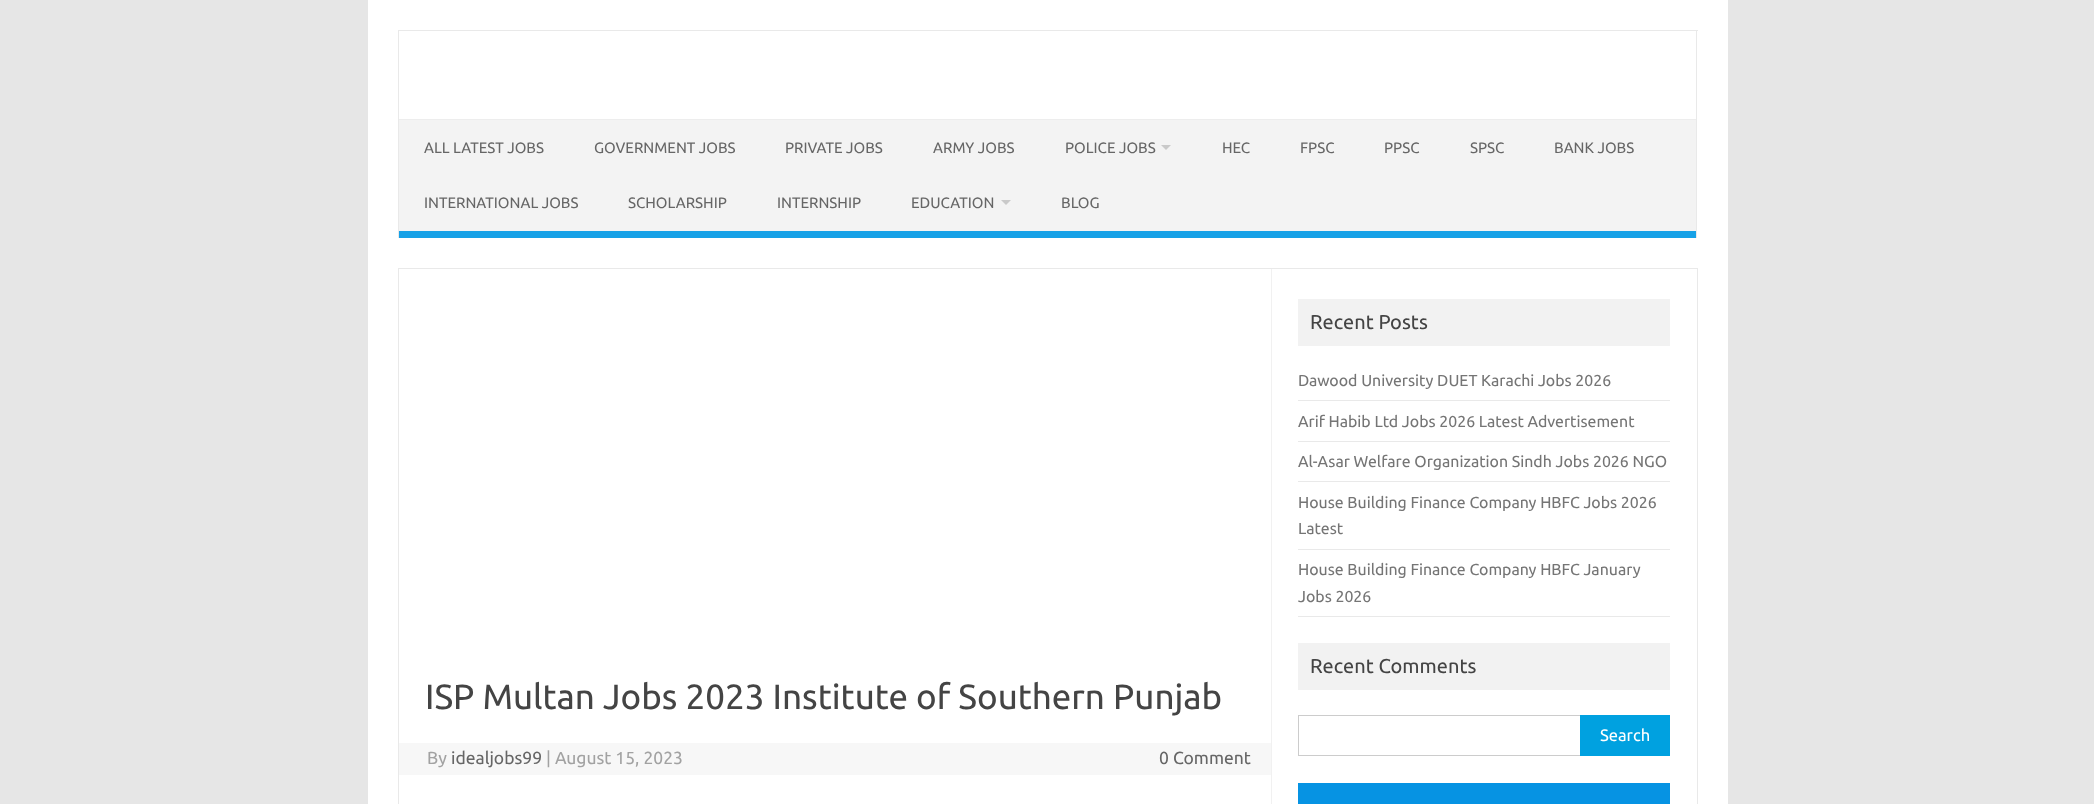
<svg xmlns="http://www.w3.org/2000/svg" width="2094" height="804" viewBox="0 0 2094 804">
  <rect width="100%" height="100%" fill="rgb(230,230,230)"/>
  <rect x="368" y="0" width="1360" height="804" fill="rgb(255,255,255)"/>
  <rect x="398" y="30" width="1300" height="1" fill="rgb(233,233,233)"/>
  <rect x="1696" y="30" width="1" height="208" fill="rgb(233,233,233)"/>
  <rect x="398" y="30" width="1" height="208" fill="rgb(233,233,233)"/>
  <rect x="399" y="120" width="1297" height="111" fill="rgb(243,243,243)"/>
  <rect x="399" y="119" width="1297" height="1" fill="rgb(237,237,237)"/>
  <rect x="399" y="231" width="1297" height="7" fill="rgb(22,161,231)"/>
  <g font-family="Ubuntu" font-size="15" fill="rgb(102,102,102)">
    <text x="424" y="153">ALL LATEST JOBS</text>
    <text x="594" y="153">GOVERNMENT JOBS</text>
    <text x="785" y="153">PRIVATE JOBS</text>
    <text x="933" y="153">ARMY JOBS</text>
    <text x="1065" y="153">POLICE JOBS</text>
  </g>
  <path d="M1161 145H1171L1166 150Z" fill="rgb(201,201,201)"/>
  <g font-family="Ubuntu" font-size="15" fill="rgb(102,102,102)">
    <text x="1222" y="153">HEC</text>
    <text x="1300" y="153">FPSC</text>
    <text x="1384" y="153">PPSC</text>
    <text x="1470" y="153">SPSC</text>
    <text x="1554" y="153">BANK JOBS</text>
    <text x="424" y="208">INTERNATIONAL JOBS</text>
    <text x="628" y="208">SCHOLARSHIP</text>
    <text x="777" y="208">INTERNSHIP</text>
    <text x="911" y="208">EDUCATION</text>
  </g>
  <path d="M1001 200H1011L1006 205Z" fill="rgb(201,201,201)"/>
  <text x="1061" y="208" font-family="Ubuntu" font-size="15" fill="rgb(102,102,102)">BLOG</text>
  <rect x="398.5" y="268.5" width="1299" height="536" fill="none" stroke="rgb(233,233,233)"/>
  <rect x="1271" y="269" width="1" height="535" fill="rgb(241,241,241)"/>
  <text x="425" y="709" font-family="Ubuntu" font-size="35" fill="rgb(68,68,68)">ISP Multan Jobs 2023 Institute of Southern Punjab</text>
  <rect x="399" y="743" width="872" height="32" fill="rgb(247,247,247)"/>
  <text x="427" y="764" font-family="Ubuntu" font-size="17.5" fill="rgb(162,162,162)">By</text>
  <text x="451" y="764" font-family="Ubuntu" font-size="17.5" fill="rgb(102,102,102)">idealjobs99</text>
  <text x="546" y="764" font-family="Ubuntu" font-size="17.5" fill="rgb(162,162,162)">| August 15, 2023</text>
  <text x="1159" y="764" font-family="Ubuntu" font-size="17.5" fill="rgb(102,102,102)">0 Comment</text>
  <rect x="1298" y="299" width="372" height="47" fill="rgb(242,242,242)"/>
  <text x="1310" y="329" font-family="Ubuntu" font-size="20" fill="rgb(68,68,68)">Recent Posts</text>
  <rect x="1298" y="400" width="372" height="1" fill="rgb(233,233,233)"/>
  <text x="1298" y="386" font-family="Ubuntu" font-size="15.9" fill="rgb(117,117,117)">Dawood University DUET Karachi Jobs 2026</text>
  <rect x="1298" y="441" width="372" height="1" fill="rgb(233,233,233)"/>
  <text x="1298" y="427" font-family="Ubuntu" font-size="15.9" fill="rgb(117,117,117)">Arif Habib Ltd Jobs 2026 Latest Advertisement</text>
  <rect x="1298" y="481" width="372" height="1" fill="rgb(233,233,233)"/>
  <text x="1298" y="467" font-family="Ubuntu" font-size="15.9" fill="rgb(117,117,117)">Al-Asar Welfare Organization Sindh Jobs 2026 NGO</text>
  <rect x="1298" y="549" width="372" height="1" fill="rgb(233,233,233)"/>
  <g font-family="Ubuntu" font-size="15.9" fill="rgb(117,117,117)">
    <text>
      <tspan x="1298" y="508">House Building Finance Company HBFC Jobs 2026</tspan>
      <tspan x="1298" y="534">Latest</tspan>
    </text>
  </g>
  <rect x="1298" y="616" width="372" height="1" fill="rgb(233,233,233)"/>
  <g font-family="Ubuntu" font-size="15.9" fill="rgb(117,117,117)">
    <text>
      <tspan x="1298" y="575">House Building Finance Company HBFC January</tspan>
      <tspan x="1298" y="602">Jobs 2026</tspan>
    </text>
  </g>
  <rect x="1298" y="643" width="372" height="47" fill="rgb(242,242,242)"/>
  <text x="1310" y="673" font-family="Ubuntu" font-size="20" fill="rgb(68,68,68)">Recent Comments</text>
  <rect x="1298.5" y="715.5" width="284" height="40" fill="none" stroke="rgb(204,204,204)"/>
  <rect x="1580" y="715" width="90" height="41" fill="rgb(0,161,224)"/>
  <text x="1600" y="741" font-family="Ubuntu" font-size="16.5" fill="rgb(255,255,255)">Search</text>
  <rect x="1298" y="783" width="372" height="21" fill="rgb(6,147,227)"/>
</svg>
